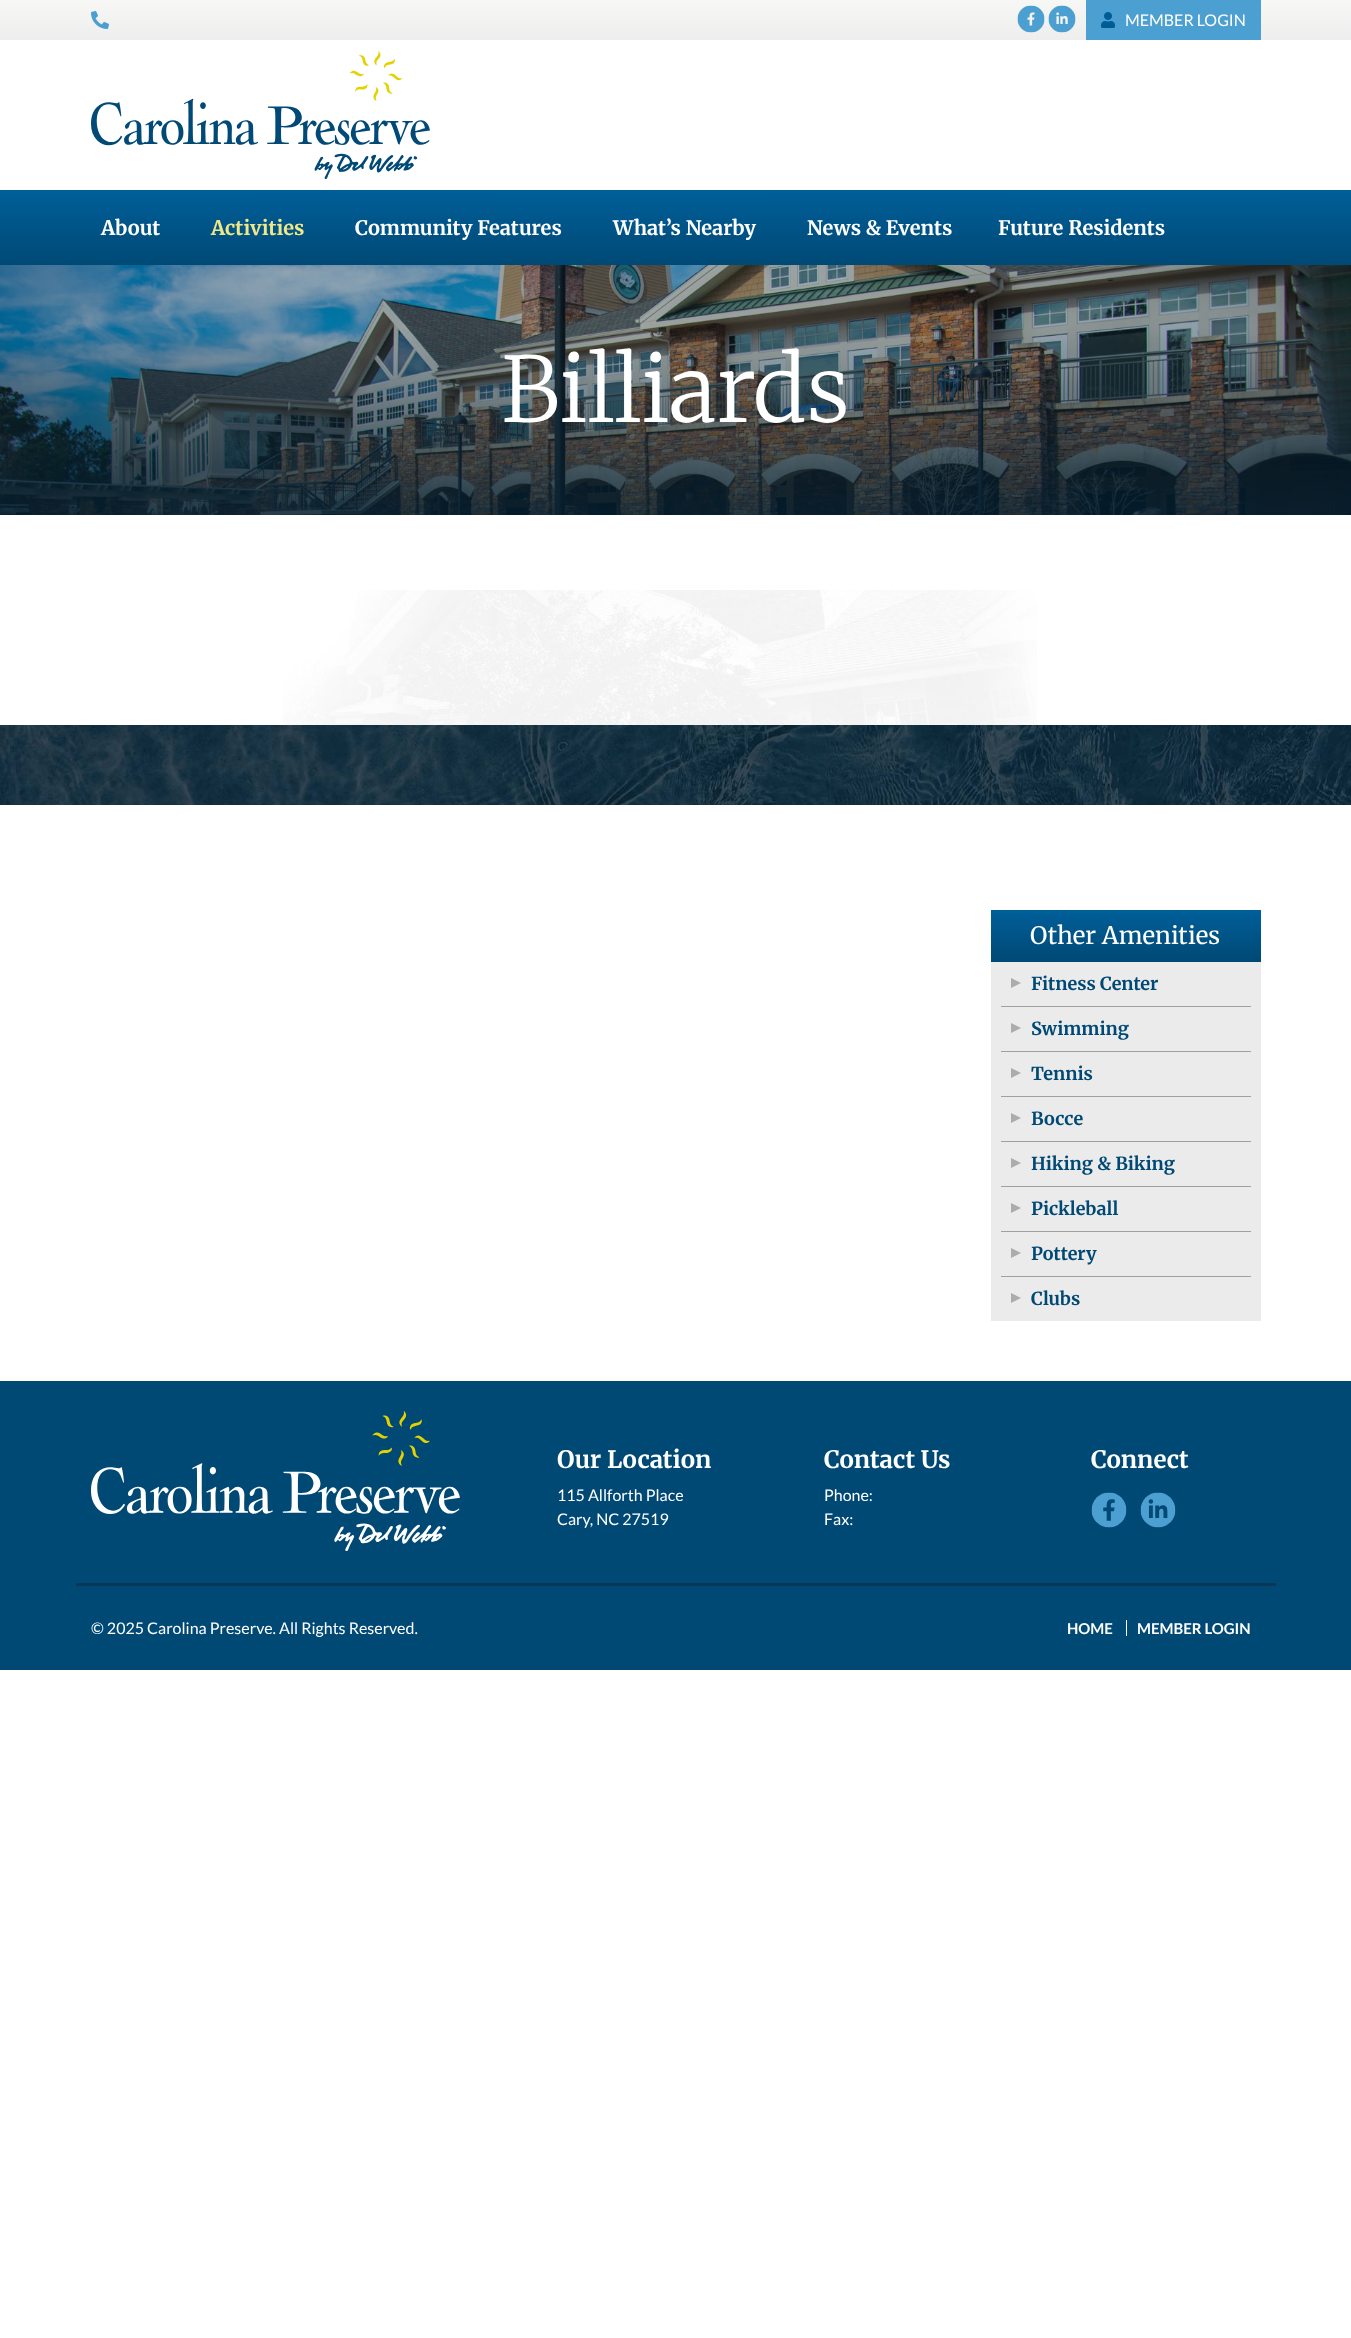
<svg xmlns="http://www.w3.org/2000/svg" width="1351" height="2338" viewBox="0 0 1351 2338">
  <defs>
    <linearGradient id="g1" gradientUnits="userSpaceOnUse" x1="676" y1="0" x2="676" y2="40"><stop offset="0" stop-color="rgb(247,247,246)"/><stop offset="1" stop-color="rgb(239,238,238)"/></linearGradient>
    <linearGradient id="g2" gradientUnits="userSpaceOnUse" x1="676" y1="190" x2="676" y2="265"><stop offset="0" stop-color="rgb(0,95,153)"/><stop offset="1" stop-color="rgb(0,73,117)"/></linearGradient>
    <linearGradient id="g3" gradientUnits="userSpaceOnUse" x1="1126" y1="910" x2="1126" y2="962"><stop offset="0" stop-color="rgb(0,95,153)"/><stop offset="1" stop-color="rgb(0,73,117)"/></linearGradient>
  </defs>
  <rect width="100%" height="100%" fill="rgb(255,255,255)"/>
  <rect x="0" y="0" width="1351" height="40" fill="url(#g1)"/>
  <image x="91" y="11" width="18" height="18" href="pic1.png"/>
  <image x="1017" y="5" width="28" height="28" href="pic2.png"/>
  <image x="1048" y="5" width="28" height="28" href="pic3.png"/>
  <rect x="1086" y="0" width="175" height="40" fill="rgb(76,159,209)"/>
  <image x="1101" y="12" width="14" height="16" href="pic4.png"/>
  <text x="1125" y="26" font-family="Lato" font-size="16" fill="rgb(255,255,255)">MEMBER LOGIN</text>
  <image x="91" y="51" width="339" height="128" href="pic5.png"/>
  <rect x="0" y="190" width="1351" height="75" fill="url(#g2)"/>
  <text x="101" y="235" font-family="Merriweather" font-size="20" font-weight="bold" fill="rgb(255,255,255)">About</text>
  <text x="211" y="235" font-family="Merriweather" font-size="20" font-weight="bold" fill="rgb(240,231,137)">Activities</text>
  <g font-family="Merriweather" font-size="20" font-weight="bold" fill="rgb(255,255,255)">
    <text x="355" y="235">Community Features</text>
    <text x="613" y="235">What’s Nearby</text>
    <text x="807" y="235">News &amp; Events</text>
    <text x="998" y="235">Future Residents</text>
  </g>
  <image x="0" y="265" width="1351" height="250" href="pic6.png"/>
  <text x="501" y="422" font-family="Merriweather" font-size="90" font-weight="300" fill="rgb(255,255,255)">Billiards</text>
  <image x="283" y="590" width="754" height="135" href="pic7.png"/>
  <image x="0" y="725" width="1351" height="80" href="pic8.png"/>
  <rect x="991" y="910" width="270" height="52" fill="url(#g3)"/>
  <text x="1030" y="944" font-family="Merriweather" font-size="24" fill="rgb(255,255,255)">Other Amenities</text>
  <rect x="991" y="962" width="270" height="359" fill="rgb(235,235,235)"/>
  <rect x="1001" y="1006" width="250" height="1" fill="rgb(160,160,160)"/>
  <path d="M1011 978V988L1021 983Z" fill="rgb(172,172,172)"/>
  <text x="1031" y="990" font-family="Merriweather" font-size="18" font-weight="bold" fill="rgb(0,73,117)">Fitness Center</text>
  <rect x="1001" y="1051" width="250" height="1" fill="rgb(160,160,160)"/>
  <path d="M1011 1023V1033L1021 1028Z" fill="rgb(172,172,172)"/>
  <text x="1031" y="1035" font-family="Merriweather" font-size="18" font-weight="bold" fill="rgb(0,73,117)">Swimming</text>
  <rect x="1001" y="1096" width="250" height="1" fill="rgb(160,160,160)"/>
  <path d="M1011 1068V1078L1021 1073Z" fill="rgb(172,172,172)"/>
  <text x="1031" y="1080" font-family="Merriweather" font-size="18" font-weight="bold" fill="rgb(0,73,117)">Tennis</text>
  <rect x="1001" y="1141" width="250" height="1" fill="rgb(160,160,160)"/>
  <path d="M1011 1113V1123L1021 1118Z" fill="rgb(172,172,172)"/>
  <text x="1031" y="1125" font-family="Merriweather" font-size="18" font-weight="bold" fill="rgb(0,73,117)">Bocce</text>
  <rect x="1001" y="1186" width="250" height="1" fill="rgb(160,160,160)"/>
  <path d="M1011 1158V1168L1021 1163Z" fill="rgb(172,172,172)"/>
  <text x="1031" y="1170" font-family="Merriweather" font-size="18" font-weight="bold" fill="rgb(0,73,117)">Hiking &amp; Biking</text>
  <rect x="1001" y="1231" width="250" height="1" fill="rgb(160,160,160)"/>
  <path d="M1011 1203V1213L1021 1208Z" fill="rgb(172,172,172)"/>
  <text x="1031" y="1215" font-family="Merriweather" font-size="18" font-weight="bold" fill="rgb(0,73,117)">Pickleball</text>
  <rect x="1001" y="1276" width="250" height="1" fill="rgb(160,160,160)"/>
  <path d="M1011 1248V1258L1021 1253Z" fill="rgb(172,172,172)"/>
  <text x="1031" y="1260" font-family="Merriweather" font-size="18" font-weight="bold" fill="rgb(0,73,117)">Pottery</text>
  <path d="M1011 1293V1303L1021 1298Z" fill="rgb(172,172,172)"/>
  <text x="1031" y="1305" font-family="Merriweather" font-size="18" font-weight="bold" fill="rgb(0,73,117)">Clubs</text>
  <rect x="0" y="1381" width="1351" height="289" fill="rgb(0,73,117)"/>
  <image x="91" y="1411" width="369" height="140" href="pic9.png"/>
  <text x="557" y="1468" font-family="Merriweather" font-size="24" font-weight="bold" fill="rgb(255,255,255)">Our Location</text>
  <g font-family="Lato" font-size="16" fill="rgb(255,255,255)">
    <text>
      <tspan x="557" y="1501">115 Allforth Place</tspan>
      <tspan x="557" y="1525">Cary, NC 27519</tspan>
    </text>
  </g>
  <text x="824" y="1468" font-family="Merriweather" font-size="24" font-weight="bold" fill="rgb(255,255,255)">Contact Us</text>
  <g font-family="Lato" font-size="16" fill="rgb(255,255,255)">
    <text>
      <tspan x="824" y="1501">Phone:</tspan>
      <tspan x="824" y="1525">Fax:</tspan>
    </text>
  </g>
  <text x="1091" y="1468" font-family="Merriweather" font-size="24" font-weight="bold" fill="rgb(255,255,255)">Connect</text>
  <image x="1091" y="1492" width="36" height="36" href="pic10.png"/>
  <image x="1140" y="1492" width="36" height="36" href="pic11.png"/>
  <rect x="76" y="1583" width="1200" height="3" fill="rgb(10,55,87)"/>
  <text x="91" y="1634" font-family="Lato" font-size="16" fill="rgb(255,255,255)">© 2025 Carolina Preserve. All Rights Reserved.</text>
  <text x="1067" y="1634" font-family="Lato" font-size="15" font-weight="bold" fill="rgb(255,255,255)">HOME</text>
  <rect x="1126" y="1620" width="1" height="16" fill="rgb(255,255,255)"/>
  <text x="1137" y="1634" font-family="Lato" font-size="15" font-weight="bold" fill="rgb(255,255,255)">MEMBER LOGIN</text>
</svg>
